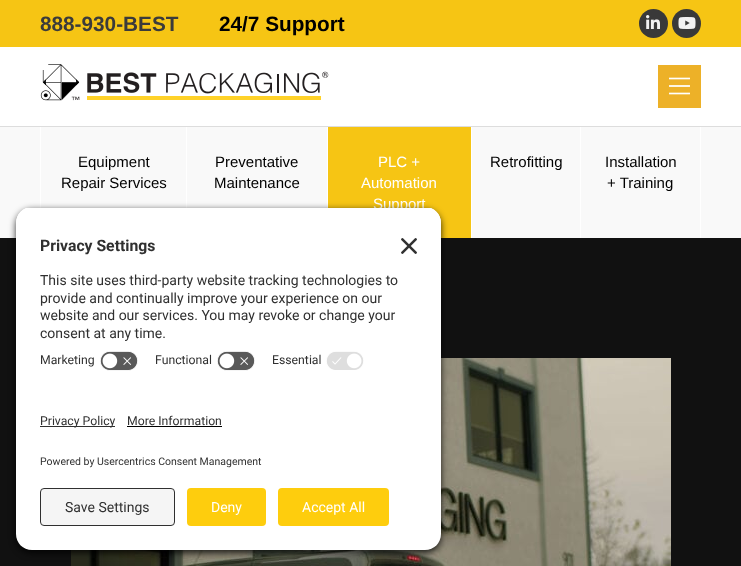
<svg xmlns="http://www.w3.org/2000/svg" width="741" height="566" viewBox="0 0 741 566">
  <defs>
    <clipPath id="clip1"><path d="M32 207H425C434 207 441 214 441 223V386H16V223C16 214 23 207 32 207Z"/></clipPath>
  </defs>
  <rect width="100%" height="100%" fill="rgb(249,249,249)"/>
  <rect x="0" y="0" width="741" height="47" fill="rgb(246,197,20)"/>
  <text x="40" y="31" font-family="Liberation Sans" font-size="20.75" font-weight="bold" fill="rgb(59,59,59)">888-930-BEST</text>
  <text x="219" y="31" font-family="Liberation Sans" font-size="20.75" font-weight="bold" fill="rgb(0,0,0)">24/7 Support</text>
  <circle cx="653.5" cy="23.5" r="14.5" fill="rgb(57,57,57)"/>
  <image x="646" y="15" width="14" height="14" href="pic1.png"/>
  <circle cx="686.5" cy="23.5" r="14.5" fill="rgb(57,57,57)"/>
  <image x="678" y="17" width="18" height="12" href="pic2.png"/>
  <rect x="0" y="47" width="741" height="79" fill="rgb(255,255,255)"/>
  <rect x="0" y="126" width="741" height="1" fill="rgb(221,221,221)"/>
  <image x="40" y="64" width="289" height="37" href="pic3.png"/>
  <rect x="658" y="65" width="43" height="43" fill="rgb(237,177,40)"/>
  <image x="669" y="77" width="21" height="18" href="pic4.png"/>
  <rect x="186" y="127" width="1" height="81" fill="rgb(255,255,255)"/>
  <rect x="40" y="127" width="1" height="81" fill="rgb(255,255,255)"/>
  <g font-family="Liberation Sans" font-size="15" fill="rgb(0,0,0)">
    <text x="78" y="167">Equipment</text>
    <text x="61" y="188">Repair Services</text>
  </g>
  <rect x="327" y="127" width="1" height="81" fill="rgb(255,255,255)"/>
  <g font-family="Liberation Sans" font-size="15" fill="rgb(0,0,0)">
    <text x="215" y="167">Preventative</text>
    <text x="214" y="188">Maintenance</text>
  </g>
  <rect x="471" y="127" width="1" height="111" fill="rgb(255,255,255)"/>
  <rect x="328" y="127" width="143" height="111" fill="rgb(246,197,20)"/>
  <g font-family="Liberation Sans" font-size="15" fill="rgb(255,255,255)">
    <text x="378" y="167">PLC +</text>
    <text x="361" y="188">Automation</text>
    <text x="373" y="209">Support</text>
  </g>
  <rect x="580" y="127" width="1" height="111" fill="rgb(255,255,255)"/>
  <text x="490" y="167" font-family="Liberation Sans" font-size="15" fill="rgb(0,0,0)">Retrofitting</text>
  <rect x="700" y="127" width="1" height="111" fill="rgb(255,255,255)"/>
  <g font-family="Liberation Sans" font-size="15" fill="rgb(0,0,0)">
    <text x="605" y="167">Installation</text>
    <text x="607" y="188">+ Training</text>
  </g>
  <rect x="0" y="238" width="741" height="328" fill="rgb(17,17,17)"/>
  <image x="71" y="358" width="600" height="208" href="pic5.png"/>
  <rect x="16" y="210" width="425" height="343" rx="16" fill="rgba(0,0,0,0.8)" filter="blur(3.5px)"/>
  <g clip-path="url(#clip1)">
    <rect x="16" y="208" width="425" height="178" fill="rgb(255,255,255)"/>
    <rect x="16" y="208" width="425" height="138" fill="rgb(255,255,255)"/>
  </g>
  <text x="40" y="251" font-family="Roboto" font-size="15.75" font-weight="bold" fill="rgb(48,48,48)">Privacy Settings</text>
  <image x="401" y="238" width="16" height="16" href="pic6.png"/>
  <g font-family="Roboto" font-size="14" fill="rgb(48,48,48)">
    <text>
      <tspan x="40" y="285">This site uses third-party website tracking technologies to</tspan>
      <tspan x="40" y="303">provide and continually improve your experience on our</tspan>
      <tspan x="40" y="320">website and our services. You may revoke or change your</tspan>
      <tspan x="40" y="338">consent at any time.</tspan>
    </text>
  </g>
  <text x="40" y="364" font-family="Roboto" font-size="12.25" fill="rgb(48,48,48)">Marketing</text>
  <image x="100" y="351" width="38" height="20" href="pic7.png"/>
  <text x="155" y="364" font-family="Roboto" font-size="12.25" fill="rgb(48,48,48)">Functional</text>
  <image x="217" y="351" width="38" height="20" href="pic7.png"/>
  <text x="272" y="364" font-family="Roboto" font-size="12.25" fill="rgb(48,48,48)">Essential</text>
  <image x="326" y="351" width="38" height="19" href="pic8.png"/>
  <path d="M16 386H441V534C441 543 434 550 425 550H32C23 550 16 543 16 534Z" fill="rgb(255,255,255)"/>
  <rect x="40" y="426" width="75" height="1" fill="rgb(48,48,48)"/>
  <g font-family="Roboto" font-size="12.25" fill="rgb(48,48,48)">
    <text x="40" y="425">Privacy Policy</text>
    <text x="127" y="425">More Information</text>
  </g>
  <rect x="127" y="426" width="95" height="1" fill="rgb(0,0,0)"/>
  <text x="40" y="465" font-family="Roboto" font-size="10.5" fill="rgb(48,48,48)">Powered by Usercentrics Consent Management</text>
  <rect x="40.5" y="488.5" width="134" height="37" rx="3.5" fill="rgb(245,245,245)" stroke="rgb(48,48,48)"/>
  <text x="65" y="512" font-family="Roboto" font-size="14" fill="rgb(48,48,48)">Save Settings</text>
  <rect x="187" y="488" width="79" height="38" rx="4" fill="rgb(254,205,13)"/>
  <text x="211" y="512" font-family="Roboto" font-size="14" fill="rgb(255,255,255)">Deny</text>
  <rect x="278" y="488" width="111" height="38" rx="4" fill="rgb(254,205,13)"/>
  <text x="302" y="512" font-family="Roboto" font-size="14" fill="rgb(255,255,255)">Accept All</text>
</svg>
